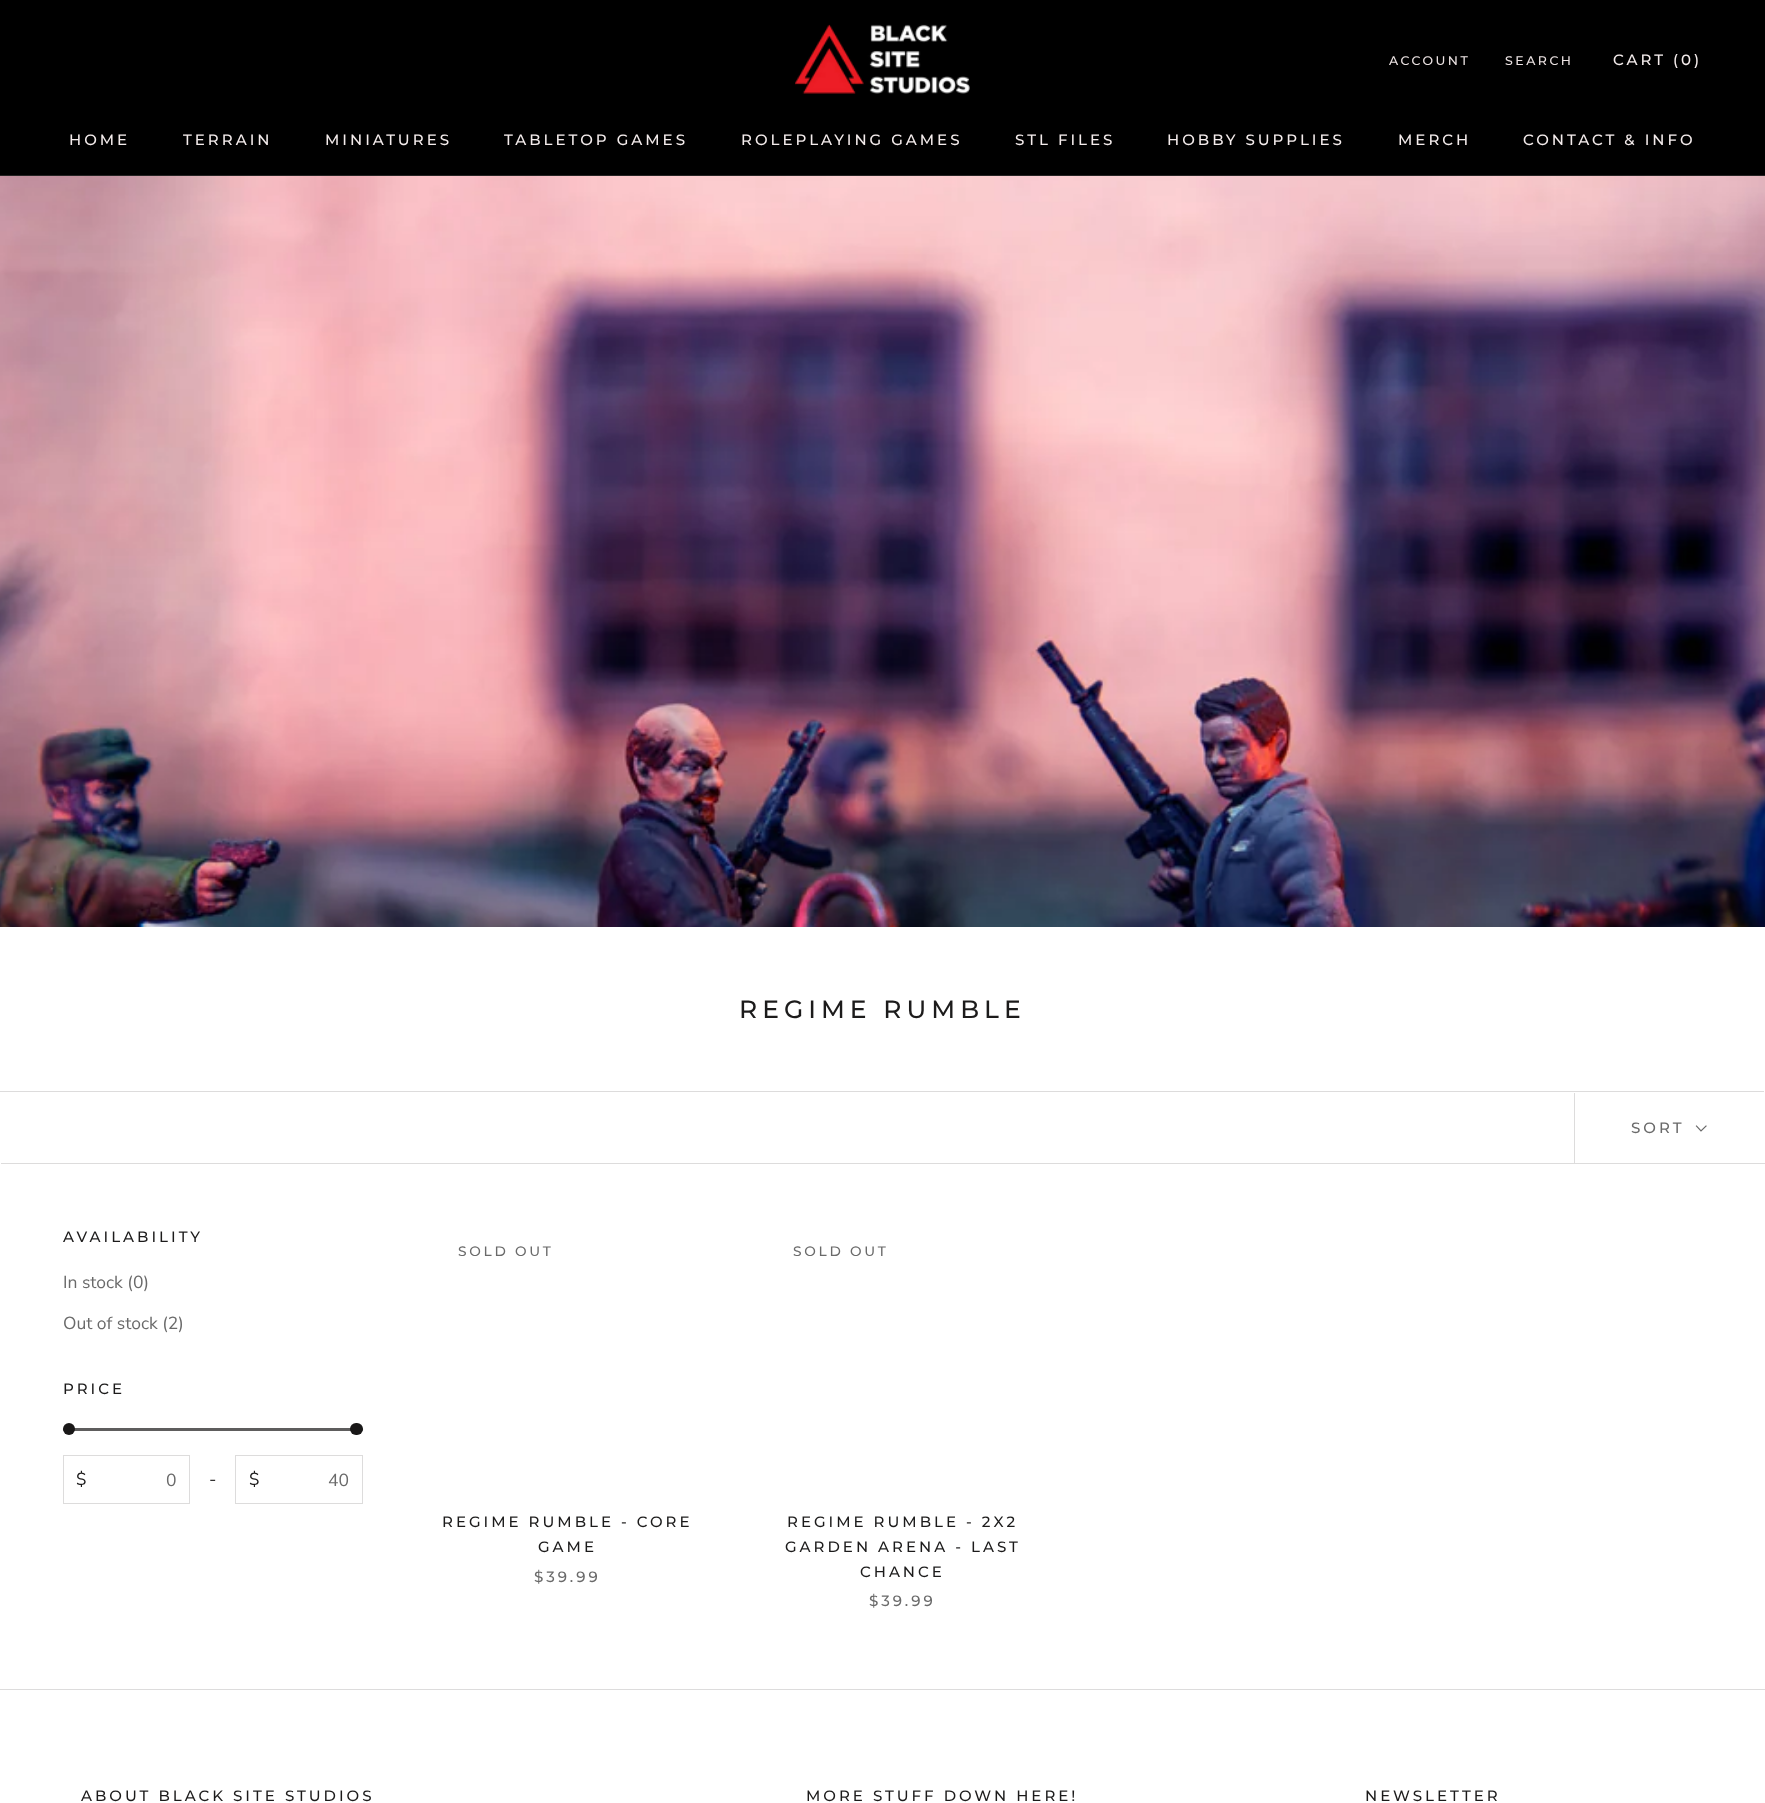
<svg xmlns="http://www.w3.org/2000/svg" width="1765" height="1803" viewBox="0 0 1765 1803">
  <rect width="100%" height="100%" fill="rgb(255,255,255)"/>
  <rect x="0" y="0" width="1765" height="175" fill="rgb(0,0,0)"/>
  <rect x="0" y="175" width="1765" height="1" fill="rgb(37,35,35)"/>
  <image x="795" y="24" width="175" height="70" href="pic1.png"/>
  <g font-family="Montserrat" font-size="12.5" font-weight="500" letter-spacing="2.5" fill="rgb(236,227,227)">
    <text x="1389" y="65">ACCOUNT</text>
    <text x="1505" y="65">SEARCH</text>
  </g>
  <g font-family="Montserrat" font-size="15" font-weight="500" letter-spacing="3" fill="rgb(244,236,236)">
    <text x="1613" y="65">CART (0)</text>
    <text x="69" y="145">HOME</text>
    <text x="183" y="145">TERRAIN</text>
    <text x="325" y="145">MINIATURES</text>
    <text x="504" y="145">TABLETOP GAMES</text>
    <text x="741" y="145">ROLEPLAYING GAMES</text>
    <text x="1015" y="145">STL FILES</text>
    <text x="1167" y="145">HOBBY SUPPLIES</text>
    <text x="1398" y="145">MERCH</text>
    <text x="1523" y="145">CONTACT &amp; INFO</text>
  </g>
  <image x="0" y="176" width="1765" height="751" href="pic2.png"/>
  <text x="739" y="1018" font-family="Montserrat" font-size="25" font-weight="500" letter-spacing="5" fill="rgb(28,27,27)">REGIME RUMBLE</text>
  <path d="M-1 1091V1161H0V1092H1764V1091Z" fill="rgb(221,220,220)"/>
  <path d="M1 1162V1164H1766V1094H1765V1162Z" fill="rgb(221,220,220)"/>
  <rect x="1" y="1162" width="1764" height="1" fill="rgb(255,255,255)"/>
  <rect x="1574" y="1093" width="1" height="70" fill="rgb(221,220,220)"/>
  <text x="1631" y="1133" font-family="Montserrat" font-size="15" font-weight="500" letter-spacing="3" fill="rgb(106,106,106)">SORT</text>
  <path d="M1706 1126L1701 1131L1696.5 1126" fill="none" stroke="rgb(106,106,106)" stroke-width="1.2" stroke-linecap="square"/>
  <text x="63" y="1242" font-family="Montserrat" font-size="15" font-weight="500" letter-spacing="3" fill="rgb(28,27,27)">AVAILABILITY</text>
  <g font-family="Nunito Sans" font-size="17.5" fill="rgb(106,106,106)">
    <text x="63" y="1288">In stock (0)</text>
    <text x="63" y="1329">Out of stock (2)</text>
  </g>
  <text x="63" y="1394" font-family="Montserrat" font-size="15" font-weight="500" letter-spacing="3" fill="rgb(28,27,27)">PRICE</text>
  <rect x="63" y="1428" width="300" height="3" rx="1.5" fill="rgb(94,93,93)"/>
  <circle cx="69" cy="1429" r="6" fill="rgb(25,24,24)"/>
  <rect x="350" y="1423" width="13" height="12" rx="6" fill="rgb(25,24,24)"/>
  <rect x="63.5" y="1455.5" width="126" height="48" fill="none" stroke="rgb(221,220,220)"/>
  <text x="76" y="1485" font-family="Nunito Sans" font-size="17.5" fill="rgb(28,27,27)">$</text>
  <text x="166" y="1486" font-family="Nunito Sans" font-size="17.5" fill="rgb(106,106,106)">0</text>
  <text x="209" y="1485" font-family="Nunito Sans" font-size="17.5" fill="rgb(28,27,27)">-</text>
  <rect x="235.5" y="1455.5" width="127" height="48" fill="none" stroke="rgb(221,220,220)"/>
  <text x="249" y="1485" font-family="Nunito Sans" font-size="17.5" fill="rgb(28,27,27)">$</text>
  <text x="328" y="1486" font-family="Nunito Sans" font-size="17.5" fill="rgb(106,106,106)">40</text>
  <text x="458" y="1256" font-family="Montserrat" font-size="13.75" font-weight="500" letter-spacing="2.75" fill="rgb(106,106,106)">SOLD OUT</text>
  <g font-family="Montserrat" font-size="15" font-weight="500" letter-spacing="3" fill="rgb(28,27,27)">
    <text x="442" y="1527">REGIME RUMBLE - CORE</text>
    <text x="538" y="1552">GAME</text>
  </g>
  <text x="534" y="1582" font-family="Montserrat" font-size="15" font-weight="500" letter-spacing="3" fill="rgb(106,106,106)">$39.99</text>
  <text x="793" y="1256" font-family="Montserrat" font-size="13.75" font-weight="500" letter-spacing="2.75" fill="rgb(106,106,106)">SOLD OUT</text>
  <g font-family="Montserrat" font-size="15" font-weight="500" letter-spacing="3" fill="rgb(28,27,27)">
    <text x="787" y="1527">REGIME RUMBLE - 2X2</text>
    <text x="785" y="1552">GARDEN ARENA - LAST</text>
    <text x="860" y="1577">CHANCE</text>
  </g>
  <text x="869" y="1606" font-family="Montserrat" font-size="15" font-weight="500" letter-spacing="3" fill="rgb(106,106,106)">$39.99</text>
  <rect x="0" y="1689" width="1765" height="1" fill="rgb(221,220,220)"/>
  <g font-family="Montserrat" font-size="15" font-weight="500" letter-spacing="3" fill="rgb(28,27,27)">
    <text x="81" y="1801">ABOUT BLACK SITE STUDIOS</text>
    <text x="806" y="1801">MORE STUFF DOWN HERE!</text>
    <text x="1365" y="1801">NEWSLETTER</text>
  </g>
</svg>
